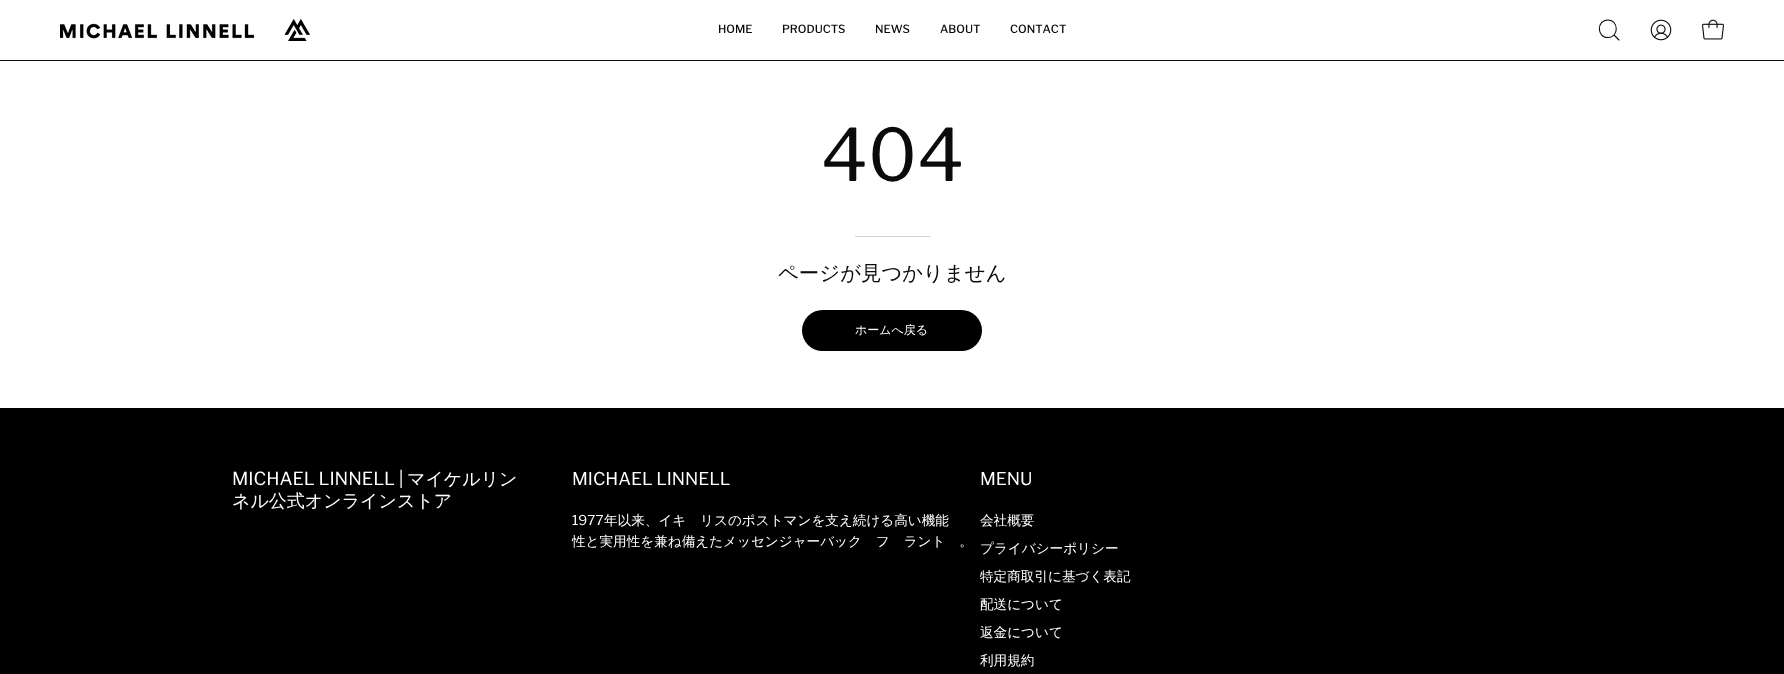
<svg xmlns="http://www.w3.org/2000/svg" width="1784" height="674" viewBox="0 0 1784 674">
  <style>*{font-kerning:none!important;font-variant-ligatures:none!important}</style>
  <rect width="100%" height="100%" fill="rgb(255,255,255)"/>
  <image x="60" y="19" width="250" height="22" href="pic1.png"/>
  <g font-family="Libre Franklin" font-size="11.25" font-weight="500" fill="rgb(11,11,11)">
    <text x="718" y="33">HOME</text>
    <text x="782" y="33">PRODUCTS</text>
    <text x="875" y="33">NEWS</text>
    <text x="940" y="33">ABOUT</text>
    <text x="1010" y="33">CONTACT</text>
  </g>
  <path d="M1608 37.5C1619 37.5 1619 20 1608 20C1596.5 20 1596.5 37.5 1608 37.5ZM1614 35L1619 40" fill="none" stroke="rgb(11,11,11)" stroke-width="1.1" stroke-linecap="round" stroke-linejoin="round"/>
  <image x="1650" y="19" width="22" height="22" href="pic2.png"/>
  <image x="1702" y="19" width="22" height="21" href="pic3.png"/>
  <rect x="0" y="60" width="1784" height="1" fill="rgb(11,11,11)"/>
  <text x="821" y="181" font-family="Libre Franklin" font-size="72" fill="rgb(11,11,11)">404</text>
  <rect x="855" y="236" width="75" height="1" fill="rgb(211,211,211)"/>
  <text x="778" y="280" font-family="WenQuanYi Zen Hei" font-size="20.4" font-weight="500" fill="rgb(11,11,11)">ページが見つかりません</text>
  <rect x="802" y="310" width="180" height="41" rx="20.5" fill="rgb(0,0,0)"/>
  <text x="855" y="334" font-family="WenQuanYi Zen Hei" font-size="12" font-weight="500" fill="rgb(255,255,255)">ホームへ戻る</text>
  <rect x="0" y="408" width="1784" height="266" fill="rgb(0,0,0)"/>
  <text x="232" y="485" font-family="Libre Franklin" font-size="18" fill="rgb(255,255,255)">MICHAEL LINNELL |</text>
  <g font-family="WenQuanYi Zen Hei" font-size="18" font-weight="500" fill="rgb(255,255,255)">
    <text x="407" y="485">マイケルリン</text>
    <text x="232" y="507">ネル公式オンラインストア</text>
  </g>
  <text x="572" y="485" font-family="Libre Franklin" font-size="17.5" fill="rgb(255,255,255)">MICHAEL LINNELL</text>
  <text x="572" y="525" font-family="Libre Franklin" font-size="13.6" fill="rgb(255,255,255)">1977</text>
  <g font-family="WenQuanYi Zen Hei" font-size="13.6" font-weight="500" fill="rgb(255,255,255)">
    <text x="604" y="525">年以来、イギリスのポストマンを支え続ける高い機能</text>
    <text x="572" y="546">性と実用性を兼ね備えたメッセンジャーバッグブランド。</text>
  </g>
  <text x="980" y="485" font-family="Libre Franklin" font-size="17.5" fill="rgb(255,255,255)">MENU</text>
  <g font-family="WenQuanYi Zen Hei" font-size="13.6" font-weight="500" fill="rgb(255,255,255)">
    <text x="980" y="525">会社概要</text>
    <text x="980" y="553">プライバシーポリシー</text>
    <text x="980" y="581">特定商取引に基づく表記</text>
    <text x="980" y="609">配送について</text>
    <text x="980" y="637">返金について</text>
    <text x="980" y="665">利用規約</text>
  </g>
</svg>
